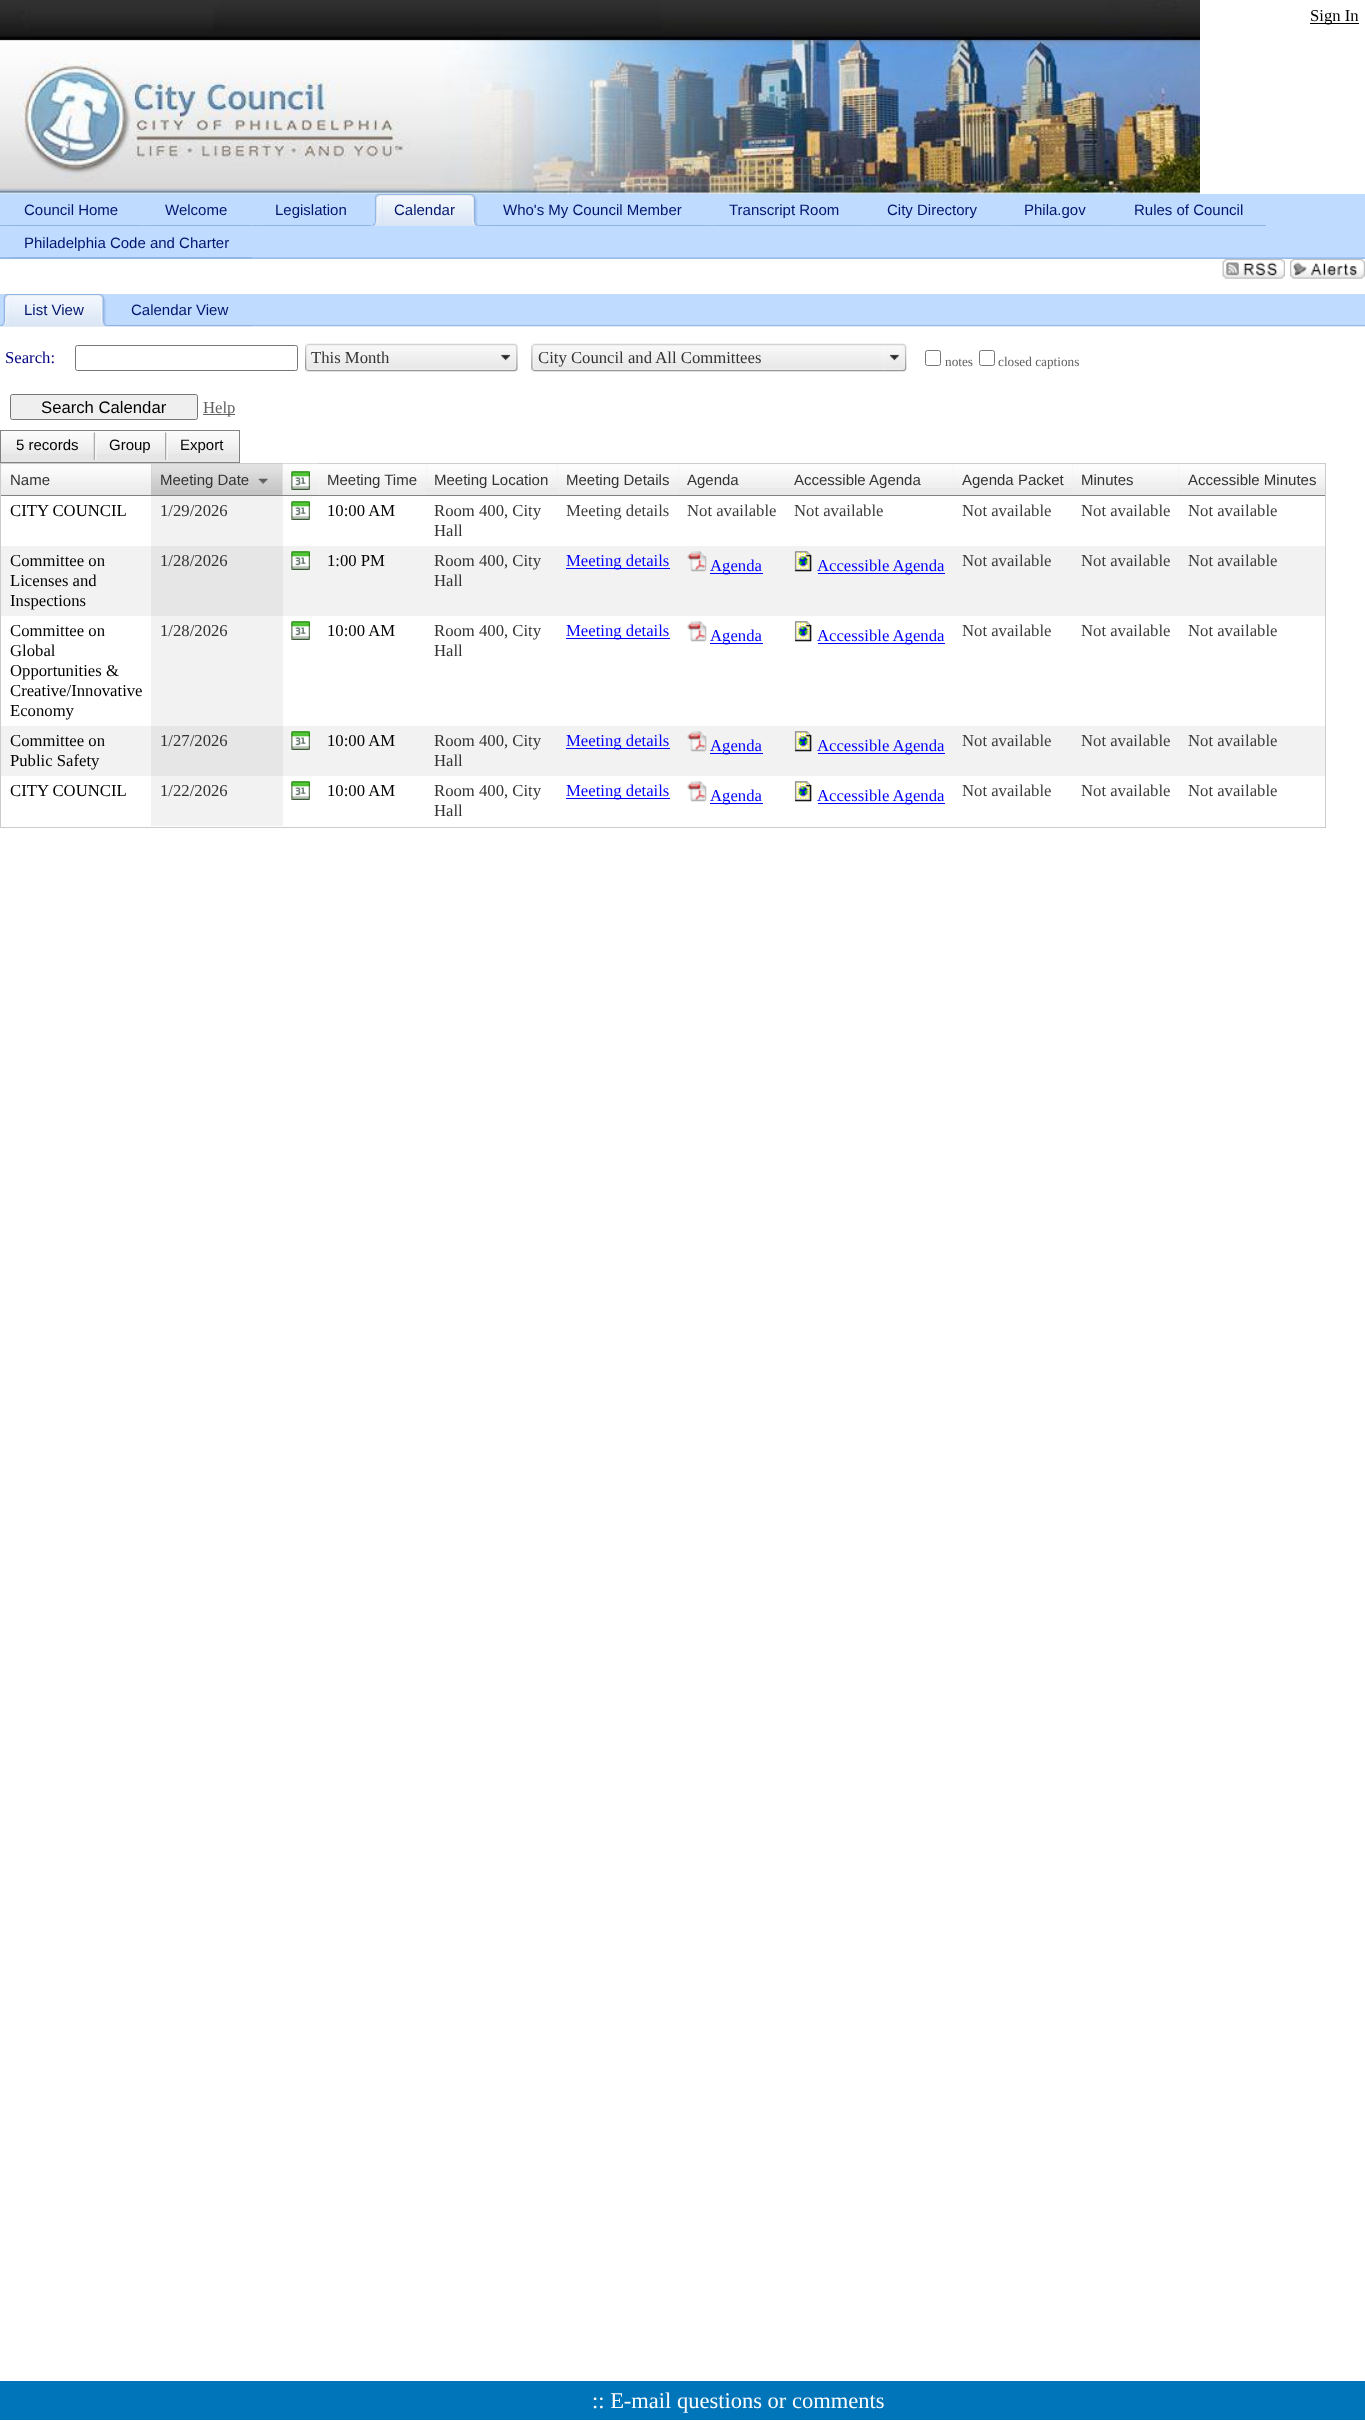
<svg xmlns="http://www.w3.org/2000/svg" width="1365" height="2421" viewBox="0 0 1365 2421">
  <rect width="100%" height="100%" fill="rgb(255,255,255)"/>
  <image x="0" y="0" width="1200" height="194" href="pic1.png"/>
  <rect x="1310" y="23" width="49" height="1" fill="rgb(0,0,0)"/>
  <text x="1310" y="21" font-family="Liberation Serif" font-size="16.7" fill="rgb(0,0,0)">Sign In</text>
  <rect x="0" y="194" width="1365" height="65" fill="rgb(191,219,255)"/>
  <image x="0" y="257" width="1365" height="2" href="pic2.png"/>
  <rect x="0" y="225" width="141" height="1" fill="rgb(147,182,230)"/>
  <image x="11" y="225" width="130" height="1" href="pic3.png"/>
  <text x="24" y="215" font-family="Liberation Sans" font-size="15" fill="rgb(0,21,110)">Council Home</text>
  <image x="141" y="225" width="12" height="1" href="pic4.png"/>
  <rect x="153" y="225" width="98" height="1" fill="rgb(142,178,226)"/>
  <text x="165" y="215" font-family="Liberation Sans" font-size="15" fill="rgb(0,21,110)">Welcome</text>
  <image x="251" y="225" width="12" height="1" href="pic4.png"/>
  <rect x="263" y="225" width="108" height="1" fill="rgb(142,178,226)"/>
  <text x="275" y="215" font-family="Liberation Sans" font-size="15" fill="rgb(0,21,110)">Legislation</text>
  <image x="372" y="193" width="11" height="33" href="pic5.png"/>
  <image x="382" y="193" width="97" height="33" href="pic6.png"/>
  <text x="394" y="215" font-family="Liberation Sans" font-size="15" fill="rgb(0,21,110)">Calendar</text>
  <rect x="479" y="225" width="11" height="1" fill="rgb(147,182,230)"/>
  <rect x="490" y="225" width="215" height="1" fill="rgb(142,178,227)"/>
  <text x="503" y="215" font-family="Liberation Sans" font-size="15" fill="rgb(0,21,110)">Who's My Council Member</text>
  <image x="705" y="225" width="159" height="1" href="pic7.png"/>
  <image x="716" y="225" width="148" height="1" href="pic8.png"/>
  <text x="729" y="215" font-family="Liberation Sans" font-size="15" fill="rgb(0,21,110)">Transcript Room</text>
  <rect x="864" y="225" width="11" height="1" fill="rgb(147,182,230)"/>
  <rect x="875" y="225" width="126" height="1" fill="rgb(142,178,227)"/>
  <text x="887" y="215" font-family="Liberation Sans" font-size="15" fill="rgb(0,21,110)">City Directory</text>
  <image x="1001" y="225" width="12" height="1" href="pic4.png"/>
  <rect x="1013" y="225" width="97" height="1" fill="rgb(142,178,226)"/>
  <text x="1024" y="215" font-family="Liberation Sans" font-size="15" fill="rgb(0,21,110)">Phila.gov</text>
  <rect x="1110" y="225" width="156" height="1" fill="rgb(147,182,230)"/>
  <image x="1121" y="225" width="145" height="1" href="pic9.png"/>
  <text x="1134" y="215" font-family="Liberation Sans" font-size="15" fill="rgb(0,21,110)">Rules of Council</text>
  <image x="0" y="257" width="252" height="2" href="pic10.png"/>
  <image x="11" y="257" width="241" height="1" href="pic11.png"/>
  <text x="24" y="248" font-family="Liberation Sans" font-size="15" fill="rgb(0,21,110)">Philadelphia Code and Charter</text>
  <image x="1222" y="259" width="63" height="20" href="pic12.png"/>
  <image x="1290" y="259" width="75" height="20" href="pic13.png"/>
  <rect x="0" y="294" width="1365" height="32" fill="rgb(191,219,255)"/>
  <image x="0" y="325" width="1365" height="2" href="pic14.png"/>
  <image x="1" y="293" width="11" height="33" href="pic15.png"/>
  <image x="11" y="293" width="96" height="34" href="pic16.png"/>
  <text x="24" y="315" font-family="Liberation Sans" font-size="15" fill="rgb(0,21,110)">List View</text>
  <image x="108" y="325" width="144" height="2" href="pic17.png"/>
  <rect x="119" y="326" width="133" height="1" fill="rgb(216,229,247)"/>
  <text x="131" y="315" font-family="Liberation Sans" font-size="15" fill="rgb(0,21,110)">Calendar View</text>
  <text x="5" y="363" font-family="Liberation Serif" font-size="16.7" fill="rgb(0,0,128)">Search:</text>
  <rect x="75.5" y="345.5" width="222" height="25" rx="2" fill="none" stroke="rgb(118,118,118)"/>
  <image x="305" y="343" width="190" height="29" href="pic18.png"/>
  <text x="311" y="363" font-family="Liberation Serif" font-size="16.7" fill="rgb(51,51,51)">This Month</text>
  <image x="495" y="343" width="23" height="29" href="pic19.png"/>
  <image x="531" y="343" width="353" height="29" href="pic20.png"/>
  <text x="538" y="363" font-family="Liberation Serif" font-size="16.7" fill="rgb(51,51,51)">City Council and All Committees</text>
  <image x="883" y="343" width="24" height="29" href="pic21.png"/>
  <rect x="925.5" y="350.5" width="15" height="15" rx="2" fill="none" stroke="rgb(118,118,118)"/>
  <text x="945" y="366" font-family="Liberation Serif" font-size="13.25" fill="rgb(98,98,98)">notes</text>
  <rect x="979.5" y="350.5" width="15" height="15" rx="2" fill="none" stroke="rgb(118,118,118)"/>
  <text x="998" y="366" font-family="Liberation Serif" font-size="13.25" fill="rgb(98,98,98)">closed captions</text>
  <rect x="10.5" y="394.5" width="187" height="25" rx="2" fill="rgb(239,239,239)" stroke="rgb(118,118,118)"/>
  <text x="41" y="413" font-family="Liberation Sans" font-size="16.7" fill="rgb(0,0,0)">Search Calendar</text>
  <rect x="203" y="414" width="32" height="1" fill="rgb(98,98,98)"/>
  <text x="203" y="413" font-family="Liberation Serif" font-size="16.7" fill="rgb(98,98,98)">Help</text>
  <rect x="1" y="454" width="238" height="8" fill="rgb(230,230,230)"/>
  <image x="1" y="431" width="238" height="23" href="pic22.png"/>
  <rect x="0.5" y="430.5" width="239" height="32" fill="none" stroke="rgb(130,130,130)"/>
  <text x="16" y="450" font-family="Liberation Sans" font-size="15" fill="rgb(0,0,0)">5 records</text>
  <image x="93" y="432" width="4" height="29" href="pic23.png"/>
  <text x="109" y="450" font-family="Liberation Sans" font-size="15" fill="rgb(0,0,0)">Group</text>
  <image x="165" y="432" width="3" height="29" href="pic24.png"/>
  <text x="180" y="450" font-family="Liberation Sans" font-size="15" fill="rgb(0,0,0)">Export</text>
  <rect x="0.5" y="463.5" width="1325" height="364" fill="none" stroke="rgb(204,204,204)"/>
  <rect x="1" y="464" width="150" height="31" fill="rgb(234,234,234)"/>
  <image x="1" y="464" width="150" height="31" href="pic25.png"/>
  <rect x="1" y="495" width="282" height="1" fill="rgb(130,130,130)"/>
  <text x="10" y="485" font-family="Liberation Sans" font-size="15" fill="rgb(51,51,51)">Name</text>
  <rect x="151" y="464" width="132" height="31" fill="rgb(196,196,196)"/>
  <image x="151" y="464" width="132" height="26" href="pic26.png"/>
  <text x="160" y="485" font-family="Liberation Sans" font-size="15" fill="rgb(51,51,51)">Meeting Date</text>
  <image x="258" y="478" width="10" height="6" href="pic27.png"/>
  <image x="282" y="463" width="37" height="33" href="pic28.png"/>
  <rect x="283" y="495" width="275" height="1" fill="rgb(130,130,130)"/>
  <image x="291" y="471" width="19" height="19" href="pic29.png"/>
  <image x="319" y="464" width="107" height="31" href="pic30.png"/>
  <text x="327" y="485" font-family="Liberation Sans" font-size="15" fill="rgb(51,51,51)">Meeting Time</text>
  <rect x="426" y="464" width="253" height="31" fill="rgb(234,234,234)"/>
  <image x="426" y="464" width="132" height="24" href="pic31.png"/>
  <text x="434" y="485" font-family="Liberation Sans" font-size="15" fill="rgb(51,51,51)">Meeting Location</text>
  <image x="557" y="464" width="122" height="32" href="pic32.png"/>
  <rect x="558" y="495" width="515" height="1" fill="rgb(130,130,130)"/>
  <text x="566" y="485" font-family="Liberation Sans" font-size="15" fill="rgb(51,51,51)">Meeting Details</text>
  <rect x="679" y="488" width="106" height="7" fill="rgb(234,234,234)"/>
  <image x="679" y="464" width="106" height="24" href="pic33.png"/>
  <text x="687" y="485" font-family="Liberation Sans" font-size="15" fill="rgb(51,51,51)">Agenda</text>
  <rect x="785" y="464" width="394" height="31" fill="rgb(234,234,234)"/>
  <image x="785" y="464" width="169" height="24" href="pic34.png"/>
  <text x="794" y="485" font-family="Liberation Sans" font-size="15" fill="rgb(51,51,51)">Accessible Agenda</text>
  <image x="954" y="464" width="119" height="24" href="pic35.png"/>
  <text x="962" y="485" font-family="Liberation Sans" font-size="15" fill="rgb(51,51,51)">Agenda Packet</text>
  <image x="1072" y="464" width="107" height="32" href="pic36.png"/>
  <rect x="1073" y="495" width="252" height="1" fill="rgb(130,130,130)"/>
  <text x="1081" y="485" font-family="Liberation Sans" font-size="15" fill="rgb(51,51,51)">Minutes</text>
  <rect x="1179" y="488" width="146" height="7" fill="rgb(234,234,234)"/>
  <image x="1179" y="464" width="146" height="24" href="pic37.png"/>
  <text x="1188" y="485" font-family="Liberation Sans" font-size="15" fill="rgb(51,51,51)">Accessible Minutes</text>
  <text x="10" y="516" font-family="Liberation Serif" font-size="16.7" fill="rgb(0,0,0)">CITY COUNCIL</text>
  <rect x="151" y="496" width="132" height="50" fill="rgb(242,242,242)"/>
  <text x="160" y="516" font-family="Liberation Serif" font-size="16.7" fill="rgb(51,51,51)">1/29/2026</text>
  <image x="291" y="501" width="19" height="19" href="pic38.png"/>
  <text x="327" y="516" font-family="Liberation Serif" font-size="16.7" fill="rgb(0,0,0)">10:00 AM</text>
  <g font-family="Liberation Serif" font-size="16.7" fill="rgb(51,51,51)">
    <text>
      <tspan x="434" y="516">Room 400, City</tspan>
      <tspan x="434" y="536">Hall</tspan>
    </text>
  </g>
  <g font-family="Liberation Serif" font-size="16.7" fill="rgb(61,61,61)">
    <text x="566" y="516">Meeting details</text>
    <text x="687" y="516">Not available</text>
    <text x="794" y="516">Not available</text>
    <text x="962" y="516">Not available</text>
    <text x="1081" y="516">Not available</text>
    <text x="1188" y="516">Not available</text>
  </g>
  <rect x="1" y="546" width="1324" height="70" fill="rgb(242,242,242)"/>
  <g font-family="Liberation Serif" font-size="16.7" fill="rgb(0,0,0)">
    <text>
      <tspan x="10" y="566">Committee on</tspan>
      <tspan x="10" y="586">Licenses and</tspan>
      <tspan x="10" y="606">Inspections</tspan>
    </text>
  </g>
  <rect x="151" y="546" width="132" height="70" fill="rgb(230,230,230)"/>
  <text x="160" y="566" font-family="Liberation Serif" font-size="16.7" fill="rgb(51,51,51)">1/28/2026</text>
  <image x="291" y="551" width="19" height="19" href="pic39.png"/>
  <text x="327" y="566" font-family="Liberation Serif" font-size="16.7" fill="rgb(0,0,0)">1:00 PM</text>
  <g font-family="Liberation Serif" font-size="16.7" fill="rgb(51,51,51)">
    <text>
      <tspan x="434" y="566">Room 400, City</tspan>
      <tspan x="434" y="586">Hall</tspan>
    </text>
  </g>
  <rect x="566" y="568" width="104" height="1" fill="rgb(0,0,255)"/>
  <text x="566" y="566" font-family="Liberation Serif" font-size="16.7" fill="rgb(0,0,255)">Meeting details</text>
  <image x="687" y="551" width="20" height="21" href="pic40.png"/>
  <rect x="710" y="573" width="53" height="1" fill="rgb(0,0,255)"/>
  <text x="710" y="571" font-family="Liberation Serif" font-size="16.7" fill="rgb(0,0,255)">Agenda</text>
  <image x="794" y="551" width="18" height="21" href="pic41.png"/>
  <rect x="818" y="573" width="127" height="1" fill="rgb(0,0,255)"/>
  <text x="817" y="571" font-family="Liberation Serif" font-size="16.7" fill="rgb(0,0,255)">Accessible Agenda</text>
  <g font-family="Liberation Serif" font-size="16.7" fill="rgb(61,61,61)">
    <text x="962" y="566">Not available</text>
    <text x="1081" y="566">Not available</text>
    <text x="1188" y="566">Not available</text>
  </g>
  <g font-family="Liberation Serif" font-size="16.7" fill="rgb(0,0,0)">
    <text>
      <tspan x="10" y="636">Committee on</tspan>
      <tspan x="10" y="656">Global</tspan>
      <tspan x="10" y="676">Opportunities &amp;</tspan>
      <tspan x="10" y="696">Creative/Innovative</tspan>
      <tspan x="10" y="716">Economy</tspan>
    </text>
  </g>
  <rect x="151" y="616" width="132" height="110" fill="rgb(242,242,242)"/>
  <text x="160" y="636" font-family="Liberation Serif" font-size="16.7" fill="rgb(51,51,51)">1/28/2026</text>
  <image x="291" y="621" width="19" height="19" href="pic38.png"/>
  <text x="327" y="636" font-family="Liberation Serif" font-size="16.7" fill="rgb(0,0,0)">10:00 AM</text>
  <g font-family="Liberation Serif" font-size="16.7" fill="rgb(51,51,51)">
    <text>
      <tspan x="434" y="636">Room 400, City</tspan>
      <tspan x="434" y="656">Hall</tspan>
    </text>
  </g>
  <rect x="566" y="638" width="104" height="1" fill="rgb(0,0,255)"/>
  <text x="566" y="636" font-family="Liberation Serif" font-size="16.7" fill="rgb(0,0,255)">Meeting details</text>
  <image x="687" y="621" width="20" height="21" href="pic42.png"/>
  <rect x="710" y="643" width="53" height="1" fill="rgb(0,0,255)"/>
  <text x="710" y="641" font-family="Liberation Serif" font-size="16.7" fill="rgb(0,0,255)">Agenda</text>
  <image x="794" y="621" width="18" height="21" href="pic43.png"/>
  <rect x="818" y="643" width="127" height="1" fill="rgb(0,0,255)"/>
  <text x="817" y="641" font-family="Liberation Serif" font-size="16.7" fill="rgb(0,0,255)">Accessible Agenda</text>
  <g font-family="Liberation Serif" font-size="16.7" fill="rgb(61,61,61)">
    <text x="962" y="636">Not available</text>
    <text x="1081" y="636">Not available</text>
    <text x="1188" y="636">Not available</text>
  </g>
  <rect x="1" y="726" width="1324" height="50" fill="rgb(242,242,242)"/>
  <g font-family="Liberation Serif" font-size="16.7" fill="rgb(0,0,0)">
    <text>
      <tspan x="10" y="746">Committee on</tspan>
      <tspan x="10" y="766">Public Safety</tspan>
    </text>
  </g>
  <rect x="151" y="726" width="132" height="50" fill="rgb(230,230,230)"/>
  <text x="160" y="746" font-family="Liberation Serif" font-size="16.7" fill="rgb(51,51,51)">1/27/2026</text>
  <image x="291" y="731" width="19" height="19" href="pic39.png"/>
  <text x="327" y="746" font-family="Liberation Serif" font-size="16.7" fill="rgb(0,0,0)">10:00 AM</text>
  <g font-family="Liberation Serif" font-size="16.7" fill="rgb(51,51,51)">
    <text>
      <tspan x="434" y="746">Room 400, City</tspan>
      <tspan x="434" y="766">Hall</tspan>
    </text>
  </g>
  <rect x="566" y="748" width="104" height="1" fill="rgb(0,0,255)"/>
  <text x="566" y="746" font-family="Liberation Serif" font-size="16.7" fill="rgb(0,0,255)">Meeting details</text>
  <image x="687" y="731" width="20" height="21" href="pic40.png"/>
  <rect x="710" y="753" width="53" height="1" fill="rgb(0,0,255)"/>
  <text x="710" y="751" font-family="Liberation Serif" font-size="16.7" fill="rgb(0,0,255)">Agenda</text>
  <image x="794" y="731" width="18" height="21" href="pic41.png"/>
  <rect x="818" y="753" width="127" height="1" fill="rgb(0,0,255)"/>
  <text x="817" y="751" font-family="Liberation Serif" font-size="16.7" fill="rgb(0,0,255)">Accessible Agenda</text>
  <g font-family="Liberation Serif" font-size="16.7" fill="rgb(61,61,61)">
    <text x="962" y="746">Not available</text>
    <text x="1081" y="746">Not available</text>
    <text x="1188" y="746">Not available</text>
  </g>
  <text x="10" y="796" font-family="Liberation Serif" font-size="16.7" fill="rgb(0,0,0)">CITY COUNCIL</text>
  <rect x="151" y="776" width="132" height="50" fill="rgb(242,242,242)"/>
  <text x="160" y="796" font-family="Liberation Serif" font-size="16.7" fill="rgb(51,51,51)">1/22/2026</text>
  <image x="291" y="781" width="19" height="19" href="pic44.png"/>
  <text x="327" y="796" font-family="Liberation Serif" font-size="16.7" fill="rgb(0,0,0)">10:00 AM</text>
  <g font-family="Liberation Serif" font-size="16.7" fill="rgb(51,51,51)">
    <text>
      <tspan x="434" y="796">Room 400, City</tspan>
      <tspan x="434" y="816">Hall</tspan>
    </text>
  </g>
  <rect x="566" y="798" width="104" height="1" fill="rgb(0,0,255)"/>
  <text x="566" y="796" font-family="Liberation Serif" font-size="16.7" fill="rgb(0,0,255)">Meeting details</text>
  <image x="687" y="781" width="20" height="21" href="pic45.png"/>
  <rect x="710" y="803" width="53" height="1" fill="rgb(0,0,255)"/>
  <text x="710" y="801" font-family="Liberation Serif" font-size="16.7" fill="rgb(0,0,255)">Agenda</text>
  <image x="794" y="781" width="18" height="21" href="pic46.png"/>
  <rect x="818" y="803" width="127" height="1" fill="rgb(0,0,255)"/>
  <text x="817" y="801" font-family="Liberation Serif" font-size="16.7" fill="rgb(0,0,255)">Accessible Agenda</text>
  <g font-family="Liberation Serif" font-size="16.7" fill="rgb(61,61,61)">
    <text x="962" y="796">Not available</text>
    <text x="1081" y="796">Not available</text>
    <text x="1188" y="796">Not available</text>
  </g>
  <rect x="0" y="2381" width="1365" height="39" fill="rgb(0,117,186)"/>
  <text x="592" y="2408" font-family="Liberation Serif" font-size="22.5" fill="rgb(255,255,255)">:: E-mail questions or comments</text>
</svg>
